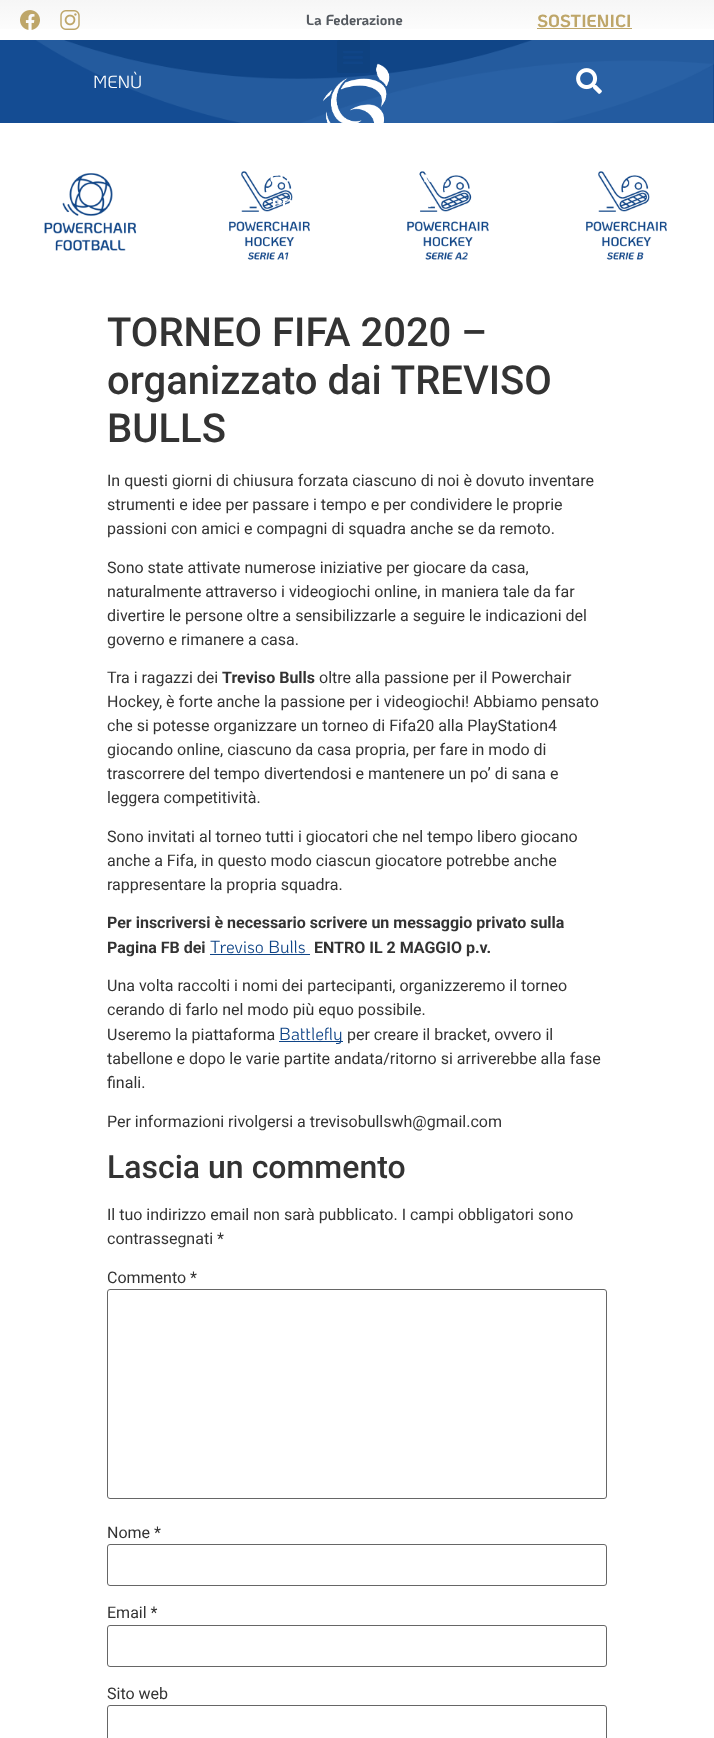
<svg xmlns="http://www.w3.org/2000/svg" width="714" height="1738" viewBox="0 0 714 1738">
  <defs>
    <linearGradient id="g1" gradientUnits="userSpaceOnUse" x1="357" y1="0" x2="357" y2="40"><stop offset="0" stop-color="rgb(246,246,246)"/><stop offset="1" stop-color="rgb(255,255,255)"/></linearGradient>
  </defs>
  <rect width="100%" height="100%" fill="rgb(255,255,255)"/>
  <rect x="0" y="0" width="714" height="29" fill="url(#g1)"/>
  <image x="20" y="10" width="20" height="20" href="pic1.png"/>
  <image x="60" y="10" width="20" height="20" href="pic2.png"/>
  <text x="306" y="25" font-family="KoHo" font-size="14.5" font-weight="bold" fill="rgb(84,89,95)">La Federazione</text>
  <text x="537" y="27" font-family="KoHo" font-size="17.5" font-weight="bold" fill="rgb(190,166,105)">SOSTIENICI</text>
  <rect x="537" y="28" width="95" height="1" fill="rgb(190,166,105)"/>
  <rect x="0" y="40" width="714" height="83" fill="rgb(16,69,135)"/>
  <image x="0" y="40" width="714" height="83" href="pic3.png"/>
  <text x="93" y="88" font-family="KoHo" font-size="17.5" fill="rgb(255,255,255)">MENÙ</text>
  <rect x="337" y="40" width="33" height="33" rx="3" fill="rgb(15,66,128)"/>
  <image x="343" y="51" width="20" height="13" href="pic4.png"/>
  <image x="229" y="171" width="81" height="89" href="pic8.png"/>
  <image x="407" y="171" width="82" height="89" href="pic9.png"/>
  <image x="268" y="63" width="178" height="145" href="pic5.png"/>
  <image x="576" y="68" width="26" height="26" href="pic6.png"/>
  <image x="44" y="173" width="93" height="78" href="pic7.png"/>
  <image x="586" y="171" width="81" height="89" href="pic10.png"/>
  <g font-family="Roboto" font-size="40" font-weight="500" fill="rgb(51,51,51)">
    <text>
      <tspan x="107" y="346">TORNEO FIFA 2020 –</tspan>
      <tspan x="107" y="394">organizzato dai TREVISO</tspan>
      <tspan x="107" y="442">BULLS</tspan>
    </text>
  </g>
  <g font-family="Roboto" font-size="16" fill="rgb(51,51,51)">
    <text>
      <tspan x="107" y="486">In questi giorni di chiusura forzata ciascuno di noi è dovuto inventare</tspan>
      <tspan x="107" y="510">strumenti e idee per passare i tempo e per condividere le proprie</tspan>
      <tspan x="107" y="534">passioni con amici e compagni di squadra anche se da remoto.</tspan>
    </text>
    <text>
      <tspan x="107" y="573">Sono state attivate numerose iniziative per giocare da casa,</tspan>
      <tspan x="107" y="597">naturalmente attraverso i videogiochi online, in maniera tale da far</tspan>
      <tspan x="107" y="621">divertire le persone oltre a sensibilizzarle a seguire le indicazioni del</tspan>
      <tspan x="107" y="645">governo e rimanere a casa.</tspan>
    </text>
    <text x="107" y="683">Tra i ragazzi dei</text>
  </g>
  <text x="222" y="683" font-family="Roboto" font-size="16" font-weight="bold" fill="rgb(51,51,51)">Treviso Bulls</text>
  <g font-family="Roboto" font-size="16" fill="rgb(51,51,51)">
    <text x="319" y="683">oltre alla passione per il Powerchair</text>
    <text>
      <tspan x="107" y="707">Hockey, è forte anche la passione per i videogiochi! Abbiamo pensato</tspan>
      <tspan x="107" y="731">che si potesse organizzare un torneo di Fifa20 alla PlayStation4</tspan>
      <tspan x="107" y="755">giocando online, ciascuno da casa propria, per fare in modo di</tspan>
      <tspan x="107" y="779">trascorrere del tempo divertendosi e mantenere un po’ di sana e</tspan>
      <tspan x="107" y="803">leggera competitività.</tspan>
    </text>
    <text>
      <tspan x="107" y="842">Sono invitati al torneo tutti i giocatori che nel tempo libero giocano</tspan>
      <tspan x="107" y="866">anche a Fifa, in questo modo ciascun giocatore potrebbe anche</tspan>
      <tspan x="107" y="890">rappresentare la propria squadra.</tspan>
    </text>
  </g>
  <g font-family="Roboto" font-size="16" font-weight="bold" fill="rgb(51,51,51)">
    <text>
      <tspan x="107" y="928">Per inscriversi è necessario scrivere un messaggio privato sulla</tspan>
      <tspan x="107" y="953">Pagina FB dei</tspan>
    </text>
  </g>
  <text x="210" y="953" font-family="KoHo" font-size="17.5" fill="rgb(16,69,135)">Treviso Bulls</text>
  <rect x="210" y="954" width="100" height="1" fill="rgb(16,69,135)"/>
  <text x="314" y="953" font-family="Roboto" font-size="16" font-weight="bold" fill="rgb(51,51,51)">ENTRO IL 2 MAGGIO p.v.</text>
  <g font-family="Roboto" font-size="16" fill="rgb(51,51,51)">
    <text>
      <tspan x="107" y="991">Una volta raccolti i nomi dei partecipanti, organizzeremo il torneo</tspan>
      <tspan x="107" y="1015">cerando di farlo nel modo più equo possibile.</tspan>
      <tspan x="107" y="1040">Useremo la piattaforma</tspan>
    </text>
  </g>
  <rect x="279" y="1041" width="64" height="1" fill="rgb(16,69,135)"/>
  <text x="279" y="1040" font-family="KoHo" font-size="17.5" fill="rgb(16,69,135)">Battlefly</text>
  <g font-family="Roboto" font-size="16" fill="rgb(51,51,51)">
    <text x="347" y="1040">per creare il bracket, ovvero il</text>
    <text>
      <tspan x="107" y="1064">tabellone e dopo le varie partite andata/ritorno si arriverebbe alla fase</tspan>
      <tspan x="107" y="1088">finali.</tspan>
    </text>
    <text x="107" y="1127">Per informazioni rivolgersi a trevisobullswh@gmail.com</text>
  </g>
  <text x="107" y="1178" font-family="Roboto" font-size="32" font-weight="500" fill="rgb(51,51,51)">Lascia un commento</text>
  <g font-family="Roboto" font-size="16" fill="rgb(51,51,51)">
    <text>
      <tspan x="107" y="1220">Il tuo indirizzo email non sarà pubblicato. I campi obbligatori sono</tspan>
      <tspan x="107" y="1244">contrassegnati *</tspan>
    </text>
    <text x="107" y="1283">Commento *</text>
  </g>
  <rect x="107.5" y="1289.5" width="499" height="209" rx="2.5" fill="none" stroke="rgb(102,102,102)"/>
  <text x="107" y="1538" font-family="Roboto" font-size="16" fill="rgb(51,51,51)">Nome *</text>
  <rect x="107.5" y="1544.5" width="499" height="41" rx="2.5" fill="none" stroke="rgb(102,102,102)"/>
  <text x="107" y="1618" font-family="Roboto" font-size="16" fill="rgb(51,51,51)">Email *</text>
  <rect x="107.5" y="1625.5" width="499" height="41" rx="2.5" fill="none" stroke="rgb(102,102,102)"/>
  <text x="107" y="1699" font-family="Roboto" font-size="16" fill="rgb(51,51,51)">Sito web</text>
  <rect x="107.5" y="1705.5" width="499" height="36" rx="2.5" fill="none" stroke="rgb(102,102,102)"/>
</svg>
